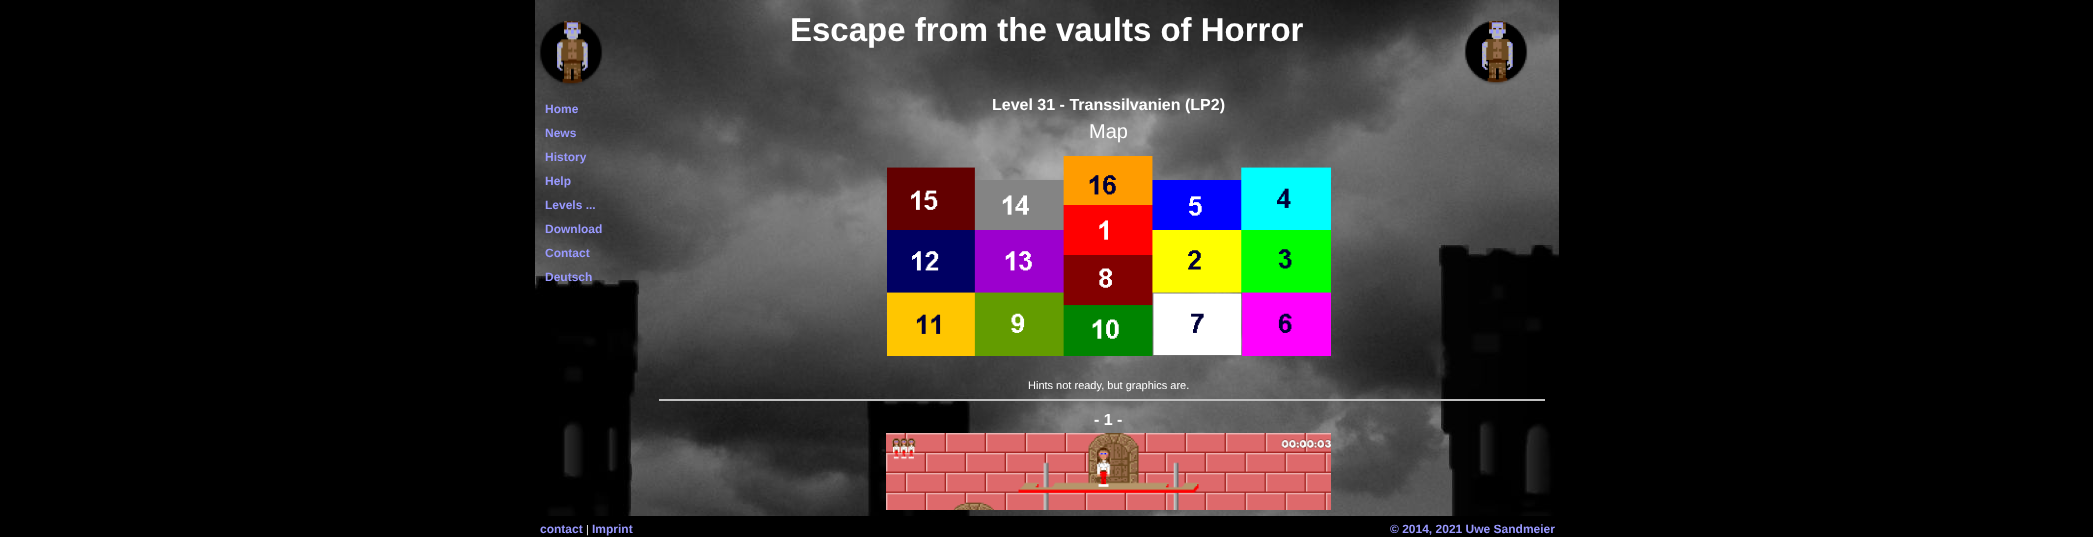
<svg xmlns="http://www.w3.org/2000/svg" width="2093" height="537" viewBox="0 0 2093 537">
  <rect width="100%" height="100%" fill="rgb(0,0,0)"/>
  <image x="535" y="0" width="1024" height="516" href="pic1.png"/>
  <image x="539" y="21" width="64" height="65" href="pic2.png"/>
  <text x="790" y="41" font-family="Liberation Sans" font-size="33" font-weight="bold" fill="rgb(255,255,255)">Escape from the vaults of Horror</text>
  <image x="1464" y="21" width="64" height="64" href="pic3.png"/>
  <g font-family="Liberation Sans" font-size="12" font-weight="bold" fill="rgb(153,153,255)">
    <text x="545" y="113">Home</text>
    <text x="545" y="137">News</text>
    <text x="545" y="161">History</text>
    <text x="545" y="185">Help</text>
    <text x="545" y="209">Levels ...</text>
    <text x="545" y="233">Download</text>
    <text x="545" y="257">Contact</text>
    <text x="545" y="281">Deutsch</text>
  </g>
  <text x="992" y="110" font-family="Liberation Sans" font-size="16" font-weight="bold" fill="rgb(255,255,255)">Level 31 - Transsilvanien (LP2)</text>
  <text x="1089" y="138" font-family="Liberation Sans" font-size="20" fill="rgb(255,255,255)">Map</text>
  <image x="887" y="156" width="444" height="200" href="pic4.png"/>
  <text x="1028" y="389" font-family="Liberation Sans" font-size="11" fill="rgb(255,255,255)">Hints not ready, but graphics are.</text>
  <rect x="659" y="399" width="886" height="2" fill="rgb(192,192,192)"/>
  <text x="1094" y="425" font-family="Liberation Sans" font-size="16" font-weight="bold" fill="rgb(255,255,255)">- 1 -</text>
  <image x="886" y="433" width="445" height="77" href="pic5.png"/>
  <text x="540" y="533" font-family="Liberation Sans" font-size="12" font-weight="bold" fill="rgb(153,153,255)">contact</text>
  <text x="586" y="533" font-family="Liberation Sans" font-size="11" fill="rgb(240,240,240)">|</text>
  <g font-family="Liberation Sans" font-size="12" font-weight="bold" fill="rgb(153,153,255)">
    <text x="592" y="533">Imprint</text>
    <text x="1390" y="533">© 2014, 2021 Uwe Sandmeier</text>
  </g>
</svg>
